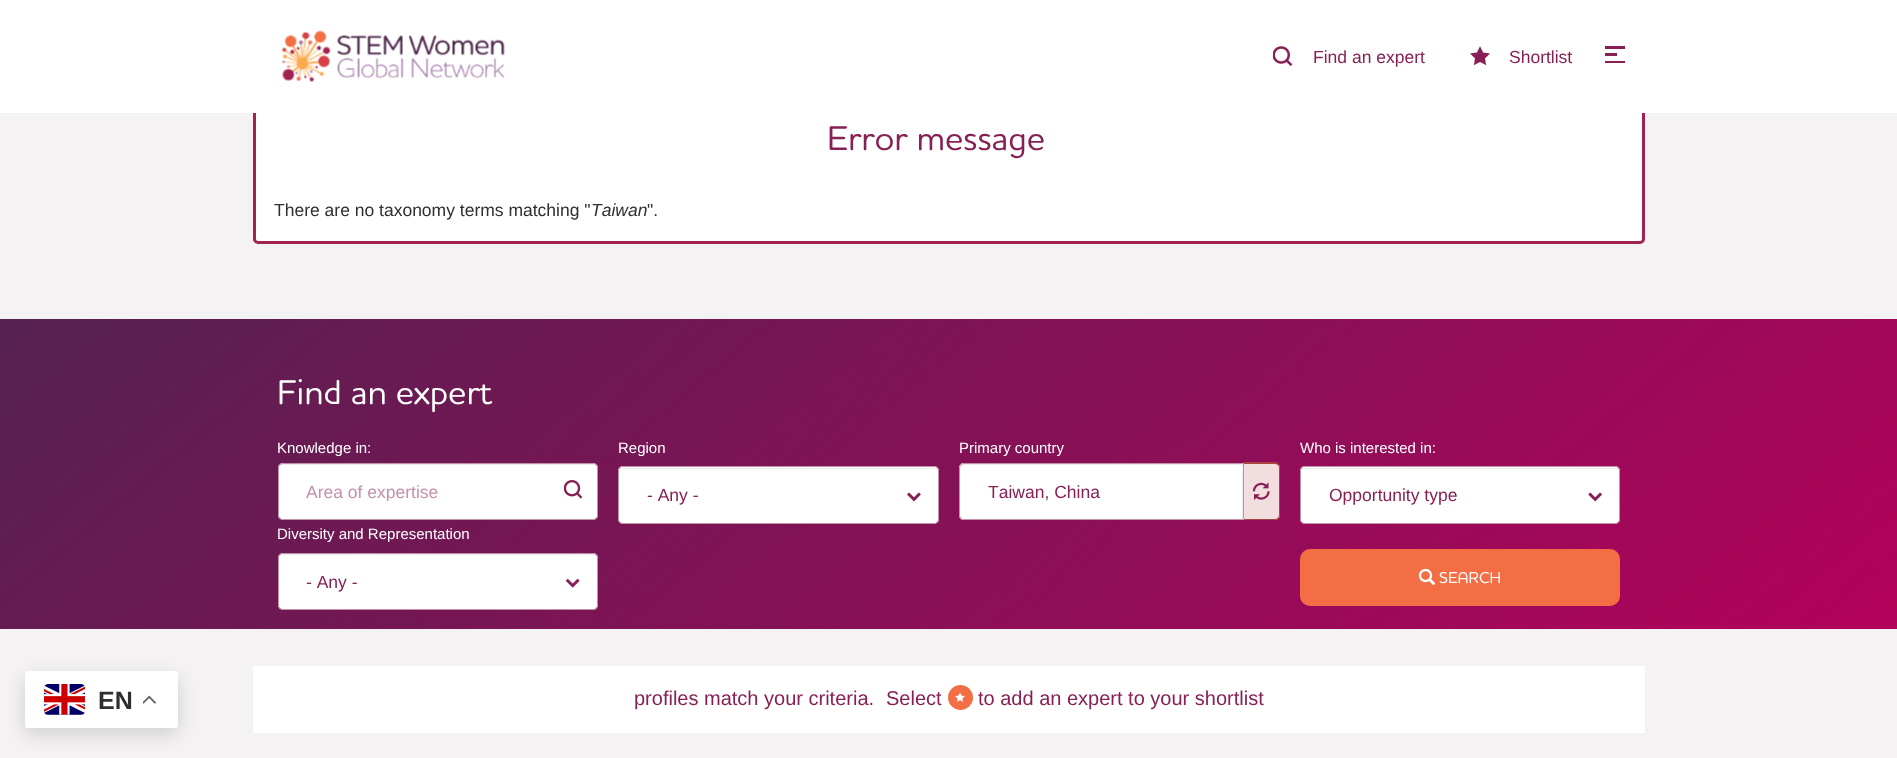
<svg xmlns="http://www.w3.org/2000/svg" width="1897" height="758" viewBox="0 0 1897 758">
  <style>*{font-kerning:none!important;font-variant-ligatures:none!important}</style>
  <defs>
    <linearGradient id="g1" gradientUnits="userSpaceOnUse" x1="1417" y1="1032" x2="480" y2="-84"><stop offset="0" stop-color="rgb(179,2,91)"/><stop offset="1" stop-color="rgb(85,33,80)"/></linearGradient>
    <clipPath id="clip1"><rect x="306" y="481" width="263" height="20"/></clipPath>
  </defs>
  <rect width="100%" height="100%" fill="rgb(244,242,242)"/>
  <rect x="254.5" y="76.5" width="1389" height="166" rx="3.5" fill="rgb(255,255,255)" stroke="rgb(161,35,80)" stroke-width="3"/>
  <rect x="0" y="0" width="1897" height="113" fill="rgb(255,255,255)"/>
  <image x="281" y="30" width="224" height="52" href="pic1.png"/>
  <image x="1273" y="46" width="20" height="20" href="pic2.png"/>
  <text x="1313" y="63" font-family="Liberation Sans" font-size="17.5" fill="rgb(135,33,85)">Find an expert</text>
  <image x="1470" y="46" width="20" height="20" href="pic3.png"/>
  <text x="1509" y="63" font-family="Liberation Sans" font-size="17.5" fill="rgb(135,33,85)">Shortlist</text>
  <rect x="1605" y="46" width="20" height="3" fill="rgb(135,33,85)"/>
  <rect x="1605" y="53" width="12" height="3" fill="rgb(135,33,85)"/>
  <rect x="1605" y="61" width="20" height="2" fill="rgb(135,33,85)"/>
  <rect x="25" y="678" width="153" height="56" rx="2.5" fill="rgba(0,0,0,0.15)" filter="blur(9.5px)"/>
  <rect x="25" y="671" width="153" height="57" rx="2.5" fill="rgb(255,255,255)"/>
  <image x="44" y="684" width="41" height="31" href="pic4.png"/>
  <text x="98" y="709" font-family="Liberation Sans" font-size="25" font-weight="bold" fill="rgb(47,47,47)">EN</text>
  <image x="143" y="695" width="13" height="9" href="pic5.png"/>
  <text x="827" y="150" font-family="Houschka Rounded" font-size="35" font-weight="500" fill="rgb(135,33,85)">Error message</text>
  <text x="274" y="216" font-family="Liberation Sans" font-size="17.5" fill="rgb(47,47,47)">There are no taxonomy terms matching "</text>
  <text x="591" y="216" font-family="Liberation Sans" font-size="17.5" font-style="italic" fill="rgb(47,47,47)">Taiwan</text>
  <text x="647" y="216" font-family="Liberation Sans" font-size="17.5" fill="rgb(47,47,47)">".</text>
  <rect x="0" y="319" width="1897" height="310" fill="url(#g1)"/>
  <text x="277" y="404" font-family="Houschka Rounded" font-size="35" font-weight="500" fill="rgb(255,255,255)">Find an expert</text>
  <text x="277" y="453" font-family="Liberation Sans" font-size="15" fill="rgb(255,255,255)">Knowledge in:</text>
  <rect x="278" y="463" width="320" height="57" rx="5" fill="rgb(255,255,255)"/>
  <path d="M282 465H592C595 465 596 467 596 469V468C596 466 594 464 592 464H283C281 464 279 466 279 468V469C279 467 280 465 282 465Z" fill="rgb(236,236,236)"/>
  <rect x="278.5" y="463.5" width="319" height="56" rx="4.5" fill="none" stroke="rgb(195,144,170)"/>
  <g clip-path="url(#clip1)">
    <text x="306" y="498" font-family="Liberation Sans" font-size="17.5" fill="rgb(195,144,170)">Area of expertise</text>
  </g>
  <image x="564" y="480" width="19" height="19" href="pic6.png"/>
  <text x="618" y="453" font-family="Liberation Sans" font-size="15" fill="rgb(255,255,255)">Region</text>
  <rect x="618" y="466" width="321" height="58" rx="5" fill="rgb(255,255,255)"/>
  <path d="M622 469H934C936 469 938 470 938 472C938 470 936 468 934 468H623C622 468 620 469 620 470Z" fill="rgb(236,236,236)"/>
  <rect x="618.5" y="466.5" width="320" height="57" rx="4.5" fill="none" stroke="rgb(195,144,170)"/>
  <text x="647" y="501" font-family="Liberation Sans" font-size="17.5" fill="rgb(135,33,85)">- Any -</text>
  <image x="907" y="492" width="14" height="10" href="pic7.png"/>
  <text x="959" y="453" font-family="Liberation Sans" font-size="15" fill="rgb(255,255,255)">Primary country</text>
  <path d="M964 463H1244V520H964C961 520 959 518 959 515V468C959 465 961 463 964 463Z" fill="rgb(255,255,255)"/>
  <path d="M964 465H1242V519H1243V464H964C961 464 960 466 960 469C960 467 962 465 964 465Z" fill="rgb(236,236,236)"/>
  <path d="M964 463.5H1243.5V519.5H964C961.5 519.5 959.5 517.5 959.5 515V468C959.5 465.5 961.5 463.5 964 463.5Z" fill="none" stroke="rgb(195,144,170)"/>
  <text x="988" y="498" font-family="Liberation Sans" font-size="17.5" fill="rgb(135,33,85)">Taiwan, China</text>
  <path d="M1244 463H1275C1278 463 1280 465 1280 468V515C1280 518 1278 520 1275 520H1244Z" fill="rgb(242,222,222)"/>
  <path d="M1244 462H1275C1278 462 1280 465 1280 468V515C1280 518 1278 520 1275 520H1244ZM1244 464H1275C1277 464 1279 465 1279 468V515C1279 517 1277 519 1275 519H1244Z" fill="rgb(169,68,66)" fill-rule="evenodd"/>
  <image x="1252" y="482" width="18" height="18" href="pic8.png"/>
  <text x="1300" y="453" font-family="Liberation Sans" font-size="15" fill="rgb(255,255,255)">Who is interested in:</text>
  <rect x="1300" y="466" width="320" height="58" rx="5" fill="rgb(255,255,255)"/>
  <path d="M1305 469H1615C1617 469 1619 470 1619 472C1619 470 1617 468 1615 468H1305C1303 468 1301 470 1301 472C1301 470 1303 469 1305 469Z" fill="rgb(236,236,236)"/>
  <rect x="1300.5" y="466.5" width="319" height="57" rx="4.5" fill="none" stroke="rgb(195,144,170)"/>
  <text x="1329" y="501" font-family="Liberation Sans" font-size="17.5" fill="rgb(135,33,85)">Opportunity type</text>
  <image x="1588" y="492" width="15" height="10" href="pic9.png"/>
  <text x="277" y="539" font-family="Liberation Sans" font-size="15" fill="rgb(255,255,255)">Diversity and Representation</text>
  <rect x="278" y="553" width="320" height="57" rx="5" fill="rgb(255,255,255)"/>
  <path d="M282 555H592C595 555 596 557 596 559V558C596 556 594 554 592 554H283C281 554 279 556 279 558V559C279 557 280 555 282 555Z" fill="rgb(236,236,236)"/>
  <rect x="278.5" y="553.5" width="319" height="56" rx="4.5" fill="none" stroke="rgb(195,144,170)"/>
  <text x="306" y="588" font-family="Liberation Sans" font-size="17.5" fill="rgb(135,33,85)">- Any -</text>
  <image x="565" y="578" width="15" height="10" href="pic10.png"/>
  <rect x="1300" y="549" width="320" height="57" rx="10" fill="rgb(243,110,69)"/>
  <image x="1418" y="568" width="18" height="18" href="pic11.png"/>
  <text x="1439" y="583" font-family="Houschka Rounded" font-size="16" font-weight="500" fill="rgb(255,255,255)">SEARCH</text>
  <rect x="253" y="666" width="1392" height="67" fill="rgb(255,255,255)"/>
  <g font-family="Liberation Sans" font-size="20" fill="rgb(135,33,85)">
    <text x="634" y="705">profiles match your criteria.</text>
    <text x="886" y="705">Select</text>
  </g>
  <circle cx="960.5" cy="697.5" r="12.5" fill="rgb(243,110,69)"/>
  <image x="955" y="693" width="10" height="9" href="pic12.png"/>
  <text x="978" y="705" font-family="Liberation Sans" font-size="20" fill="rgb(135,33,85)">to add an expert to your shortlist</text>
</svg>
